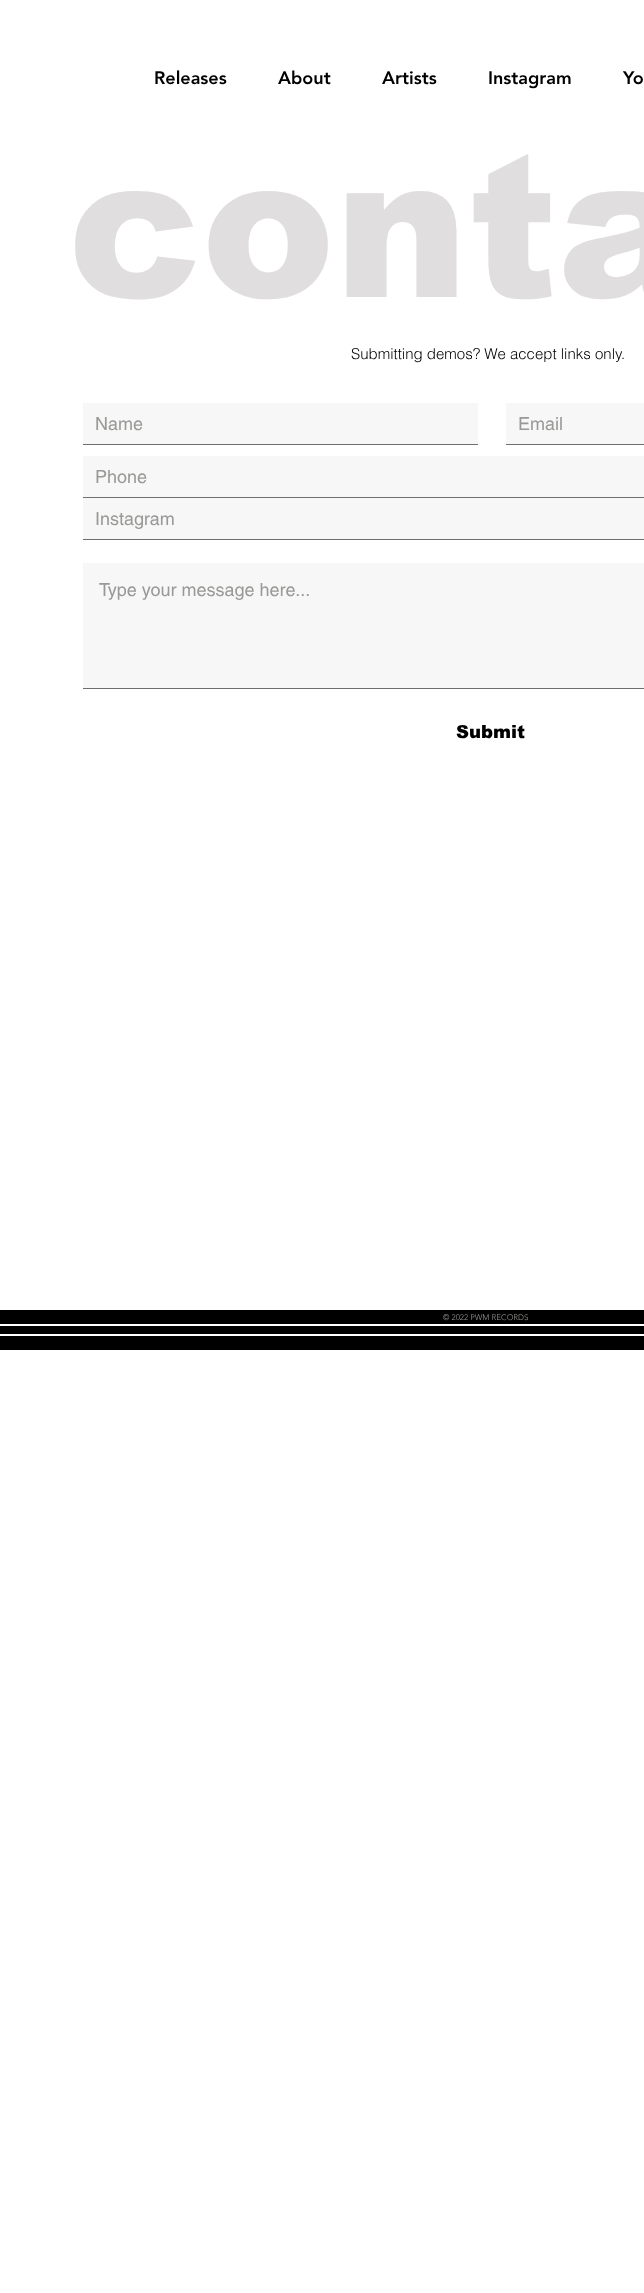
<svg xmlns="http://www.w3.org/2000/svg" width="644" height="2293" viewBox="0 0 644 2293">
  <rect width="100%" height="100%" fill="rgb(255,255,255)"/>
  <g font-family="'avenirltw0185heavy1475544'" font-size="18" font-weight="900" fill="rgb(0,0,0)">
    <text x="154" y="84">Releases</text>
    <text x="278" y="84">About</text>
    <text x="382" y="84">Artists</text>
    <text x="488" y="84">Instagram</text>
    <text x="623" y="84">Yo</text>
  </g>
  <text x="68" y="297" font-family="arial" font-size="200" font-weight="900" fill="rgb(224,222,222)">conta</text>
  <text x="351" y="359" font-family="helvetica" font-size="15" font-weight="300" fill="rgb(0,0,0)">Submitting demos? We accept links only.</text>
  <rect x="83" y="403" width="395" height="41" fill="rgb(247,247,247)"/>
  <rect x="83" y="444" width="395" height="1" fill="rgb(111,111,111)"/>
  <text x="95" y="430" font-family="helvetica" font-size="18" fill="rgb(153,153,151)">Name</text>
  <rect x="506" y="403" width="138" height="41" fill="rgb(247,247,247)"/>
  <rect x="506" y="444" width="138" height="1" fill="rgb(111,111,111)"/>
  <text x="518" y="430" font-family="helvetica" font-size="18" fill="rgb(153,153,151)">Email</text>
  <rect x="83" y="456" width="561" height="41" fill="rgb(247,247,247)"/>
  <rect x="83" y="497" width="561" height="1" fill="rgb(111,111,111)"/>
  <text x="95" y="483" font-family="helvetica" font-size="18" fill="rgb(153,153,151)">Phone</text>
  <rect x="83" y="498" width="561" height="41" fill="rgb(247,247,247)"/>
  <rect x="83" y="539" width="561" height="1" fill="rgb(111,111,111)"/>
  <text x="95" y="525" font-family="helvetica" font-size="18" fill="rgb(153,153,151)">Instagram</text>
  <rect x="83" y="563" width="561" height="125" fill="rgb(247,247,247)"/>
  <rect x="83" y="688" width="561" height="1" fill="rgb(111,111,111)"/>
  <text x="99" y="596" font-family="helvetica" font-size="18" fill="rgb(153,153,151)">Type your message here...</text>
  <text x="456" y="738" font-family="arial" font-size="18" font-weight="900" fill="rgb(0,0,0)">Submit</text>
  <rect x="0" y="1310" width="644" height="40" fill="rgb(0,0,0)"/>
  <rect x="0" y="1324" width="644" height="2" fill="rgb(255,255,255)"/>
  <rect x="0" y="1334" width="644" height="2" fill="rgb(255,255,255)"/>
  <text x="443" y="1320" font-family="'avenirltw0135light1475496'" font-size="8" font-weight="300" fill="rgb(153,153,151)">© 2022 PWM RECORDS</text>
</svg>
